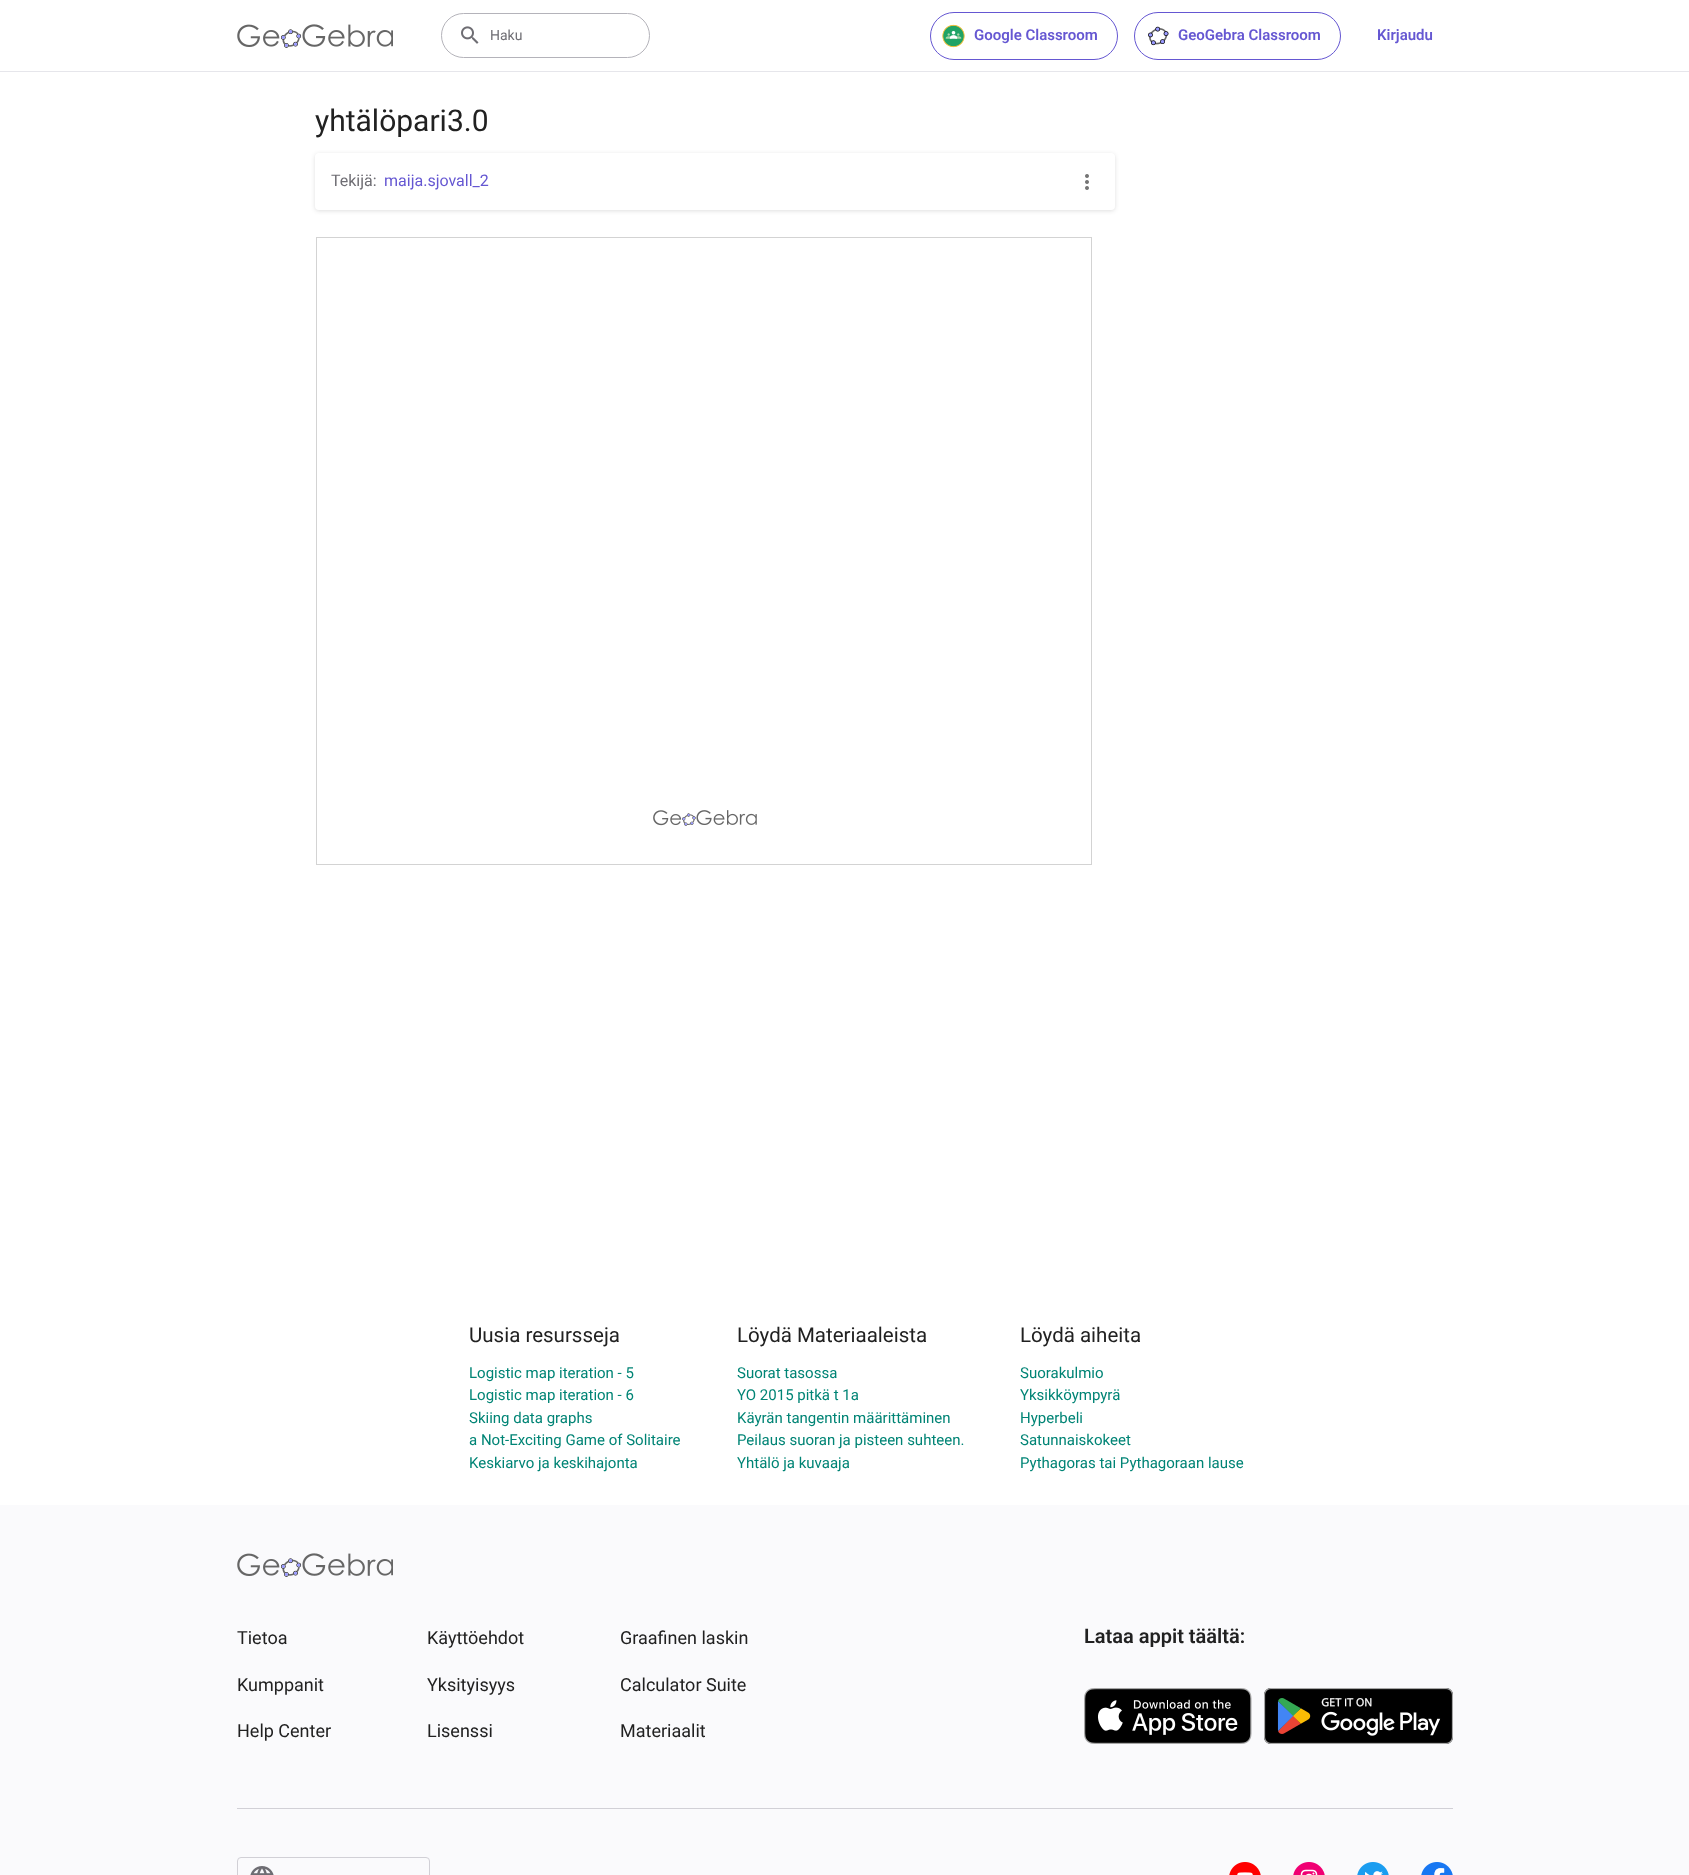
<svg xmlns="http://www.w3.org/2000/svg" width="1689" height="1875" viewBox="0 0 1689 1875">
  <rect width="100%" height="100%" fill="rgb(255,255,255)"/>
  <rect x="0" y="71" width="1689" height="1" fill="rgb(230,230,235)"/>
  <image x="237" y="24" width="156" height="24" href="pic1.png"/>
  <rect x="441.5" y="13.5" width="208" height="44" rx="22" fill="none" stroke="rgb(180,179,186)"/>
  <image x="461" y="26" width="18" height="18" href="pic2.png"/>
  <text x="490" y="40" font-family="Roboto" font-size="14" fill="rgb(110,109,115)">Haku</text>
  <rect x="930.5" y="12.5" width="187" height="47" rx="23.5" fill="none" stroke="rgb(101,87,210)"/>
  <image x="942" y="24" width="23" height="24" href="pic3.png"/>
  <text x="974" y="40" font-family="Roboto" font-size="15" font-weight="600" fill="rgb(101,87,210)">Google Classroom</text>
  <rect x="1134.5" y="12.5" width="206" height="47" rx="23.5" fill="none" stroke="rgb(101,87,210)"/>
  <image x="1148" y="26" width="21" height="20" href="pic4.png"/>
  <g font-family="Roboto" font-size="15" font-weight="600" fill="rgb(101,87,210)">
    <text x="1178" y="40">GeoGebra Classroom</text>
    <text x="1377" y="40">Kirjaudu</text>
  </g>
  <text x="315" y="131" font-family="Roboto" font-size="30" fill="rgb(33,33,33)">yhtälöpari3.0</text>
  <rect x="315" y="154" width="800" height="57" rx="4" fill="rgba(28,28,31,0.14)" filter="blur(2px)"/>
  <rect x="315" y="153" width="800" height="57" rx="4" fill="rgb(255,255,255)"/>
  <text x="331" y="186" font-family="Roboto" font-size="16" fill="rgb(110,109,115)">Tekijä:</text>
  <text x="384" y="186" font-family="Roboto" font-size="16" fill="rgb(101,87,210)">maija.sjovall_2</text>
  <image x="1085" y="174" width="4" height="16" href="pic5.png"/>
  <image x="653" y="810" width="104" height="16" href="pic6.png"/>
  <rect x="316.5" y="237.5" width="775" height="627" fill="none" stroke="rgb(211,211,211)"/>
  <text x="469" y="1342" font-family="Roboto" font-size="20.5" fill="rgb(33,33,33)">Uusia resursseja</text>
  <g font-family="Roboto" font-size="15" fill="rgb(0,132,117)">
    <text>
      <tspan x="469" y="1378">Logistic map iteration - 5</tspan>
      <tspan x="469" y="1400">Logistic map iteration - 6</tspan>
      <tspan x="469" y="1423">Skiing data graphs</tspan>
      <tspan x="469" y="1445">a Not-Exciting Game of Solitaire</tspan>
      <tspan x="469" y="1468">Keskiarvo ja keskihajonta</tspan>
    </text>
  </g>
  <text x="737" y="1342" font-family="Roboto" font-size="20.5" fill="rgb(33,33,33)">Löydä Materiaaleista</text>
  <g font-family="Roboto" font-size="15" fill="rgb(0,132,117)">
    <text>
      <tspan x="737" y="1378">Suorat tasossa</tspan>
      <tspan x="737" y="1400">YO 2015 pitkä t 1a</tspan>
      <tspan x="737" y="1423">Käyrän tangentin määrittäminen</tspan>
      <tspan x="737" y="1445">Peilaus suoran ja pisteen suhteen.</tspan>
      <tspan x="737" y="1468">Yhtälö ja kuvaaja</tspan>
    </text>
  </g>
  <text x="1020" y="1342" font-family="Roboto" font-size="20.5" fill="rgb(33,33,33)">Löydä aiheita</text>
  <g font-family="Roboto" font-size="15" fill="rgb(0,132,117)">
    <text>
      <tspan x="1020" y="1378">Suorakulmio</tspan>
      <tspan x="1020" y="1400">Yksikköympyrä</tspan>
      <tspan x="1020" y="1423">Hyperbeli</tspan>
      <tspan x="1020" y="1445">Satunnaiskokeet</tspan>
      <tspan x="1020" y="1468">Pythagoras tai Pythagoraan lause</tspan>
    </text>
  </g>
  <rect x="0" y="1505" width="1689" height="370" fill="rgb(250,250,252)"/>
  <image x="237" y="1553" width="156" height="24" href="pic7.png"/>
  <g font-family="Roboto" font-size="18" fill="rgb(33,33,33)">
    <text x="237" y="1644">Tietoa</text>
    <text x="237" y="1691">Kumppanit</text>
    <text x="237" y="1737">Help Center</text>
    <text x="427" y="1644">Käyttöehdot</text>
    <text x="427" y="1691">Yksityisyys</text>
    <text x="427" y="1737">Lisenssi</text>
    <text x="620" y="1644">Graafinen laskin</text>
    <text x="620" y="1691">Calculator Suite</text>
    <text x="620" y="1737">Materiaalit</text>
  </g>
  <text x="1084" y="1643" font-family="Roboto" font-size="20" font-weight="600" fill="rgb(33,33,33)">Lataa appit täältä:</text>
  <image x="1084" y="1688" width="168" height="56" href="pic8.png"/>
  <image x="1264" y="1688" width="189" height="56" href="pic9.png"/>
  <rect x="237" y="1808" width="1216" height="1" fill="rgb(209,208,214)"/>
  <rect x="237.5" y="1857.5" width="192" height="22" rx="3.5" fill="none" stroke="rgb(209,208,214)"/>
  <image x="250" y="1866" width="24" height="9" href="pic10.png"/>
  <image x="1229" y="1862" width="32" height="13" href="pic11.png"/>
  <image x="1293" y="1862" width="32" height="13" href="pic12.png"/>
  <image x="1357" y="1862" width="32" height="13" href="pic13.png"/>
  <image x="1421" y="1862" width="32" height="13" href="pic14.png"/>
</svg>
